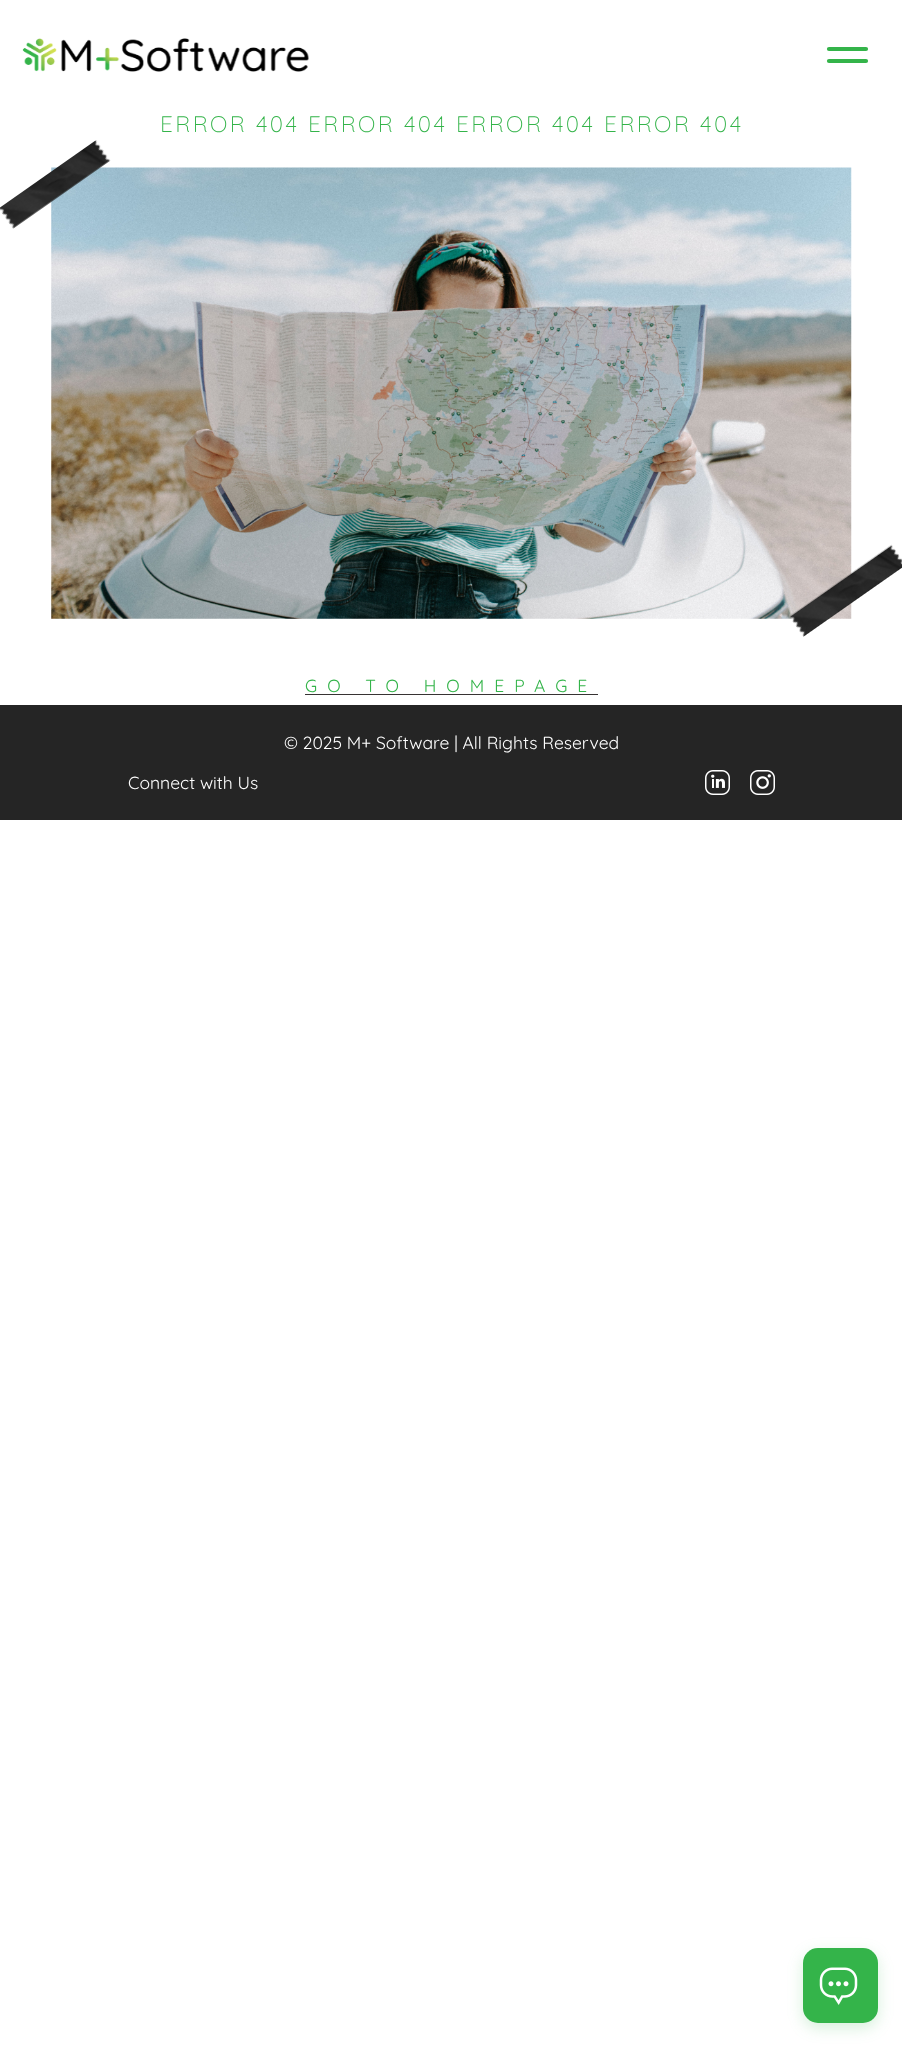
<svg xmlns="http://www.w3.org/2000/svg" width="902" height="2047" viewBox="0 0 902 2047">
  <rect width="100%" height="100%" fill="rgb(255,255,255)"/>
  <image x="22" y="38" width="287" height="34" href="pic1.png"/>
  <path d="M829 61H866M829 49H866" fill="none" stroke="rgb(52,180,74)" stroke-width="4.2" stroke-linecap="round" stroke-linejoin="round"/>
  <text x="160" y="132" font-family="Quicksand" font-size="22.55" font-weight="300" letter-spacing="2.5" fill="rgb(52,180,74)">ERROR 404 ERROR 404 ERROR 404 ERROR 404</text>
  <image x="51" y="167" width="801" height="452" href="pic3.png"/>
  <image x="0" y="140" width="111" height="89" href="pic2.png"/>
  <image x="789" y="544" width="113" height="93" href="pic4.png"/>
  <rect x="305" y="694" width="293" height="1" fill="rgb(55,51,51)"/>
  <text x="305" y="692" font-family="Quicksand" font-size="17.5" letter-spacing="10" fill="rgb(52,180,74)">GO TO HOMEPAGE</text>
  <rect x="0" y="705" width="902" height="115" fill="rgb(37,37,37)"/>
  <g font-family="Quicksand" font-size="17.5" fill="rgb(255,255,255)">
    <text x="284" y="749">© 2025 M+ Software | All Rights Reserved</text>
    <text x="128" y="789">Connect with Us</text>
  </g>
  <image x="705" y="770" width="25" height="25" href="pic5.png"/>
  <image x="750" y="770" width="25" height="25" href="pic6.png"/>
  <rect x="803" y="1953" width="75" height="75" rx="15" fill="rgba(52,180,74,0.2)" filter="blur(7.5px)"/>
  <rect x="803" y="1948" width="75" height="75" rx="15" fill="rgb(52,180,74)"/>
  <image x="819" y="1967" width="39" height="38" href="pic7.png"/>
</svg>
